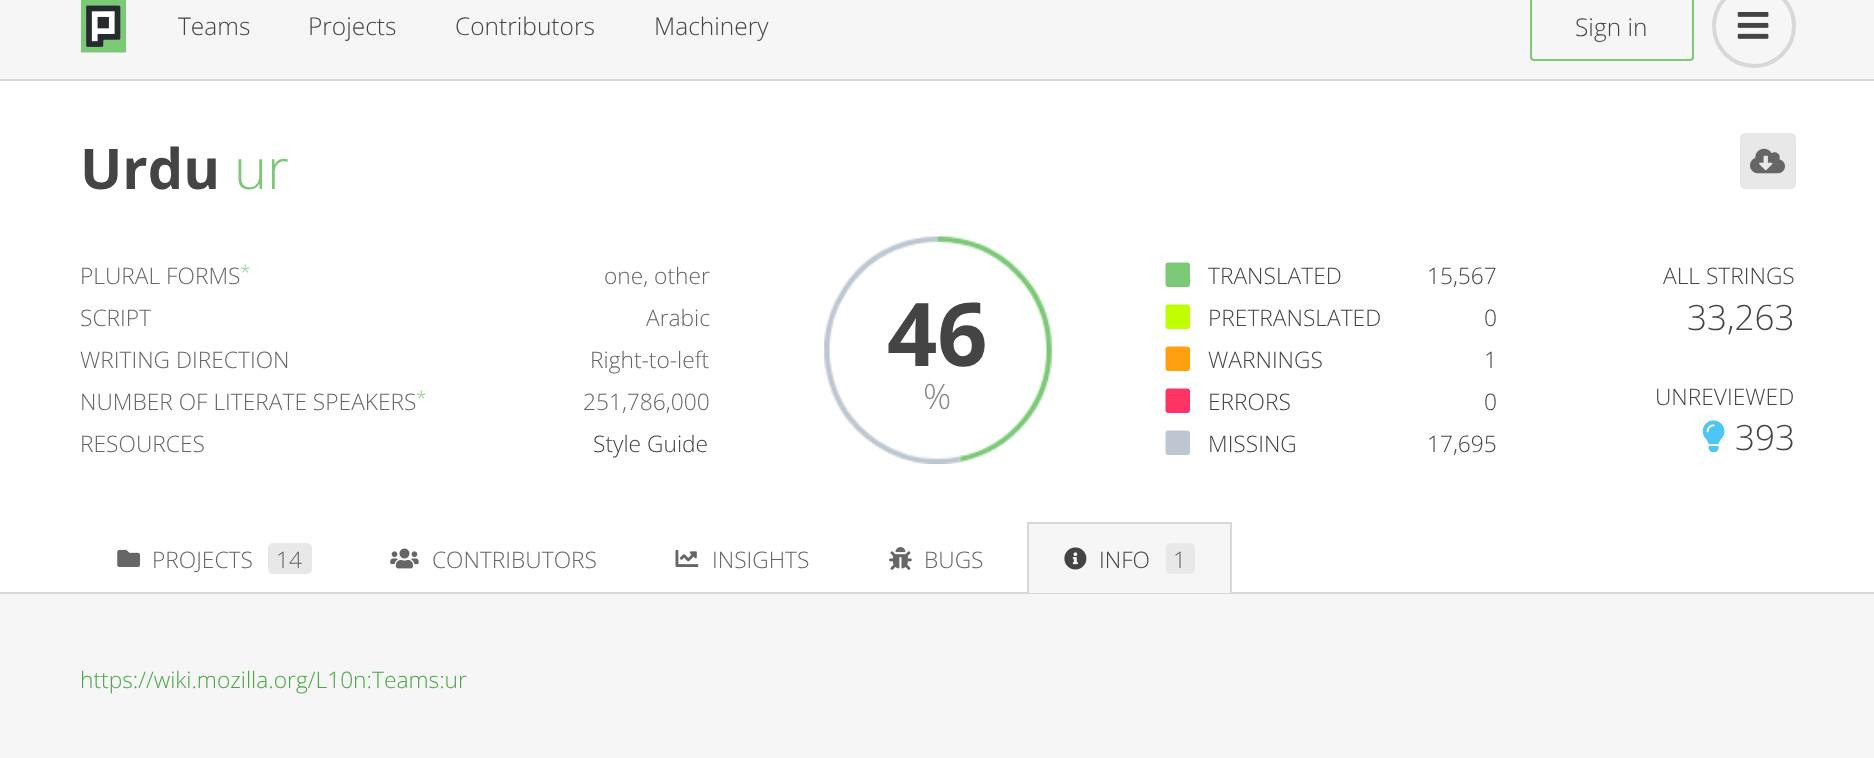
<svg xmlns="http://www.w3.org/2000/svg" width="1874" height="758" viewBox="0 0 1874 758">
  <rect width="100%" height="100%" fill="rgb(246,246,246)"/>
  <rect x="0" y="79" width="1874" height="2" fill="rgb(216,216,216)"/>
  <image x="81" y="0" width="45" height="53" href="pic1.png"/>
  <g font-family="Open Sans" font-size="24.5" font-weight="300" fill="rgb(68,68,68)">
    <text x="178" y="35">Teams</text>
    <text x="308" y="35">Projects</text>
    <text x="455" y="35">Contributors</text>
    <text x="654" y="35">Machinery</text>
  </g>
  <rect x="1531" y="-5" width="162" height="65" rx="3" fill="none" stroke="rgb(123,200,118)" stroke-width="2"/>
  <text x="1575" y="36" font-family="Open Sans" font-size="24.5" font-weight="300" fill="rgb(68,68,68)">Sign in</text>
  <circle cx="1754" cy="26" r="40" fill="none" stroke="rgb(216,216,216)" stroke-width="4"/>
  <image x="1737" y="12" width="32" height="27" href="pic2.png"/>
  <rect x="0" y="81" width="1874" height="511" fill="rgb(255,255,255)"/>
  <text x="80" y="189" font-family="Open Sans" font-size="56" font-weight="bold" fill="rgb(68,68,68)">Urdu</text>
  <text x="234" y="189" font-family="Open Sans" font-size="56" font-weight="300" fill="rgb(123,200,118)">ur</text>
  <rect x="1740" y="133" width="56" height="56" rx="5" fill="rgb(232,232,232)"/>
  <image x="1750" y="148" width="35" height="26" href="pic3.png"/>
  <text x="80" y="284" font-family="Open Sans" font-size="22.75" font-weight="300" fill="rgb(102,102,102)">PLURAL FORMS</text>
  <text x="240" y="279" font-family="Open Sans" font-size="19" font-weight="300" fill="rgb(123,200,118)">*</text>
  <g font-family="Open Sans" font-size="22.75" font-weight="300" fill="rgb(102,102,102)">
    <text x="604" y="284">one, other</text>
    <text x="80" y="326">SCRIPT</text>
    <text x="646" y="326">Arabic</text>
    <text x="80" y="368">WRITING DIRECTION</text>
    <text x="590" y="368">Right-to-left</text>
    <text x="80" y="410">NUMBER OF LITERATE SPEAKERS</text>
  </g>
  <text x="416" y="405" font-family="Open Sans" font-size="19" font-weight="300" fill="rgb(123,200,118)">*</text>
  <g font-family="Open Sans" font-size="22.75" font-weight="300" fill="rgb(102,102,102)">
    <text x="583" y="410">251,786,000</text>
    <text x="80" y="452">RESOURCES</text>
  </g>
  <text x="593" y="452" font-family="Open Sans" font-size="22.75" font-weight="300" fill="rgb(68,68,68)">Style Guide</text>
  <image x="824" y="236" width="228" height="228" href="pic4.png"/>
  <text x="887" y="366" font-family="Open Sans" font-size="88" font-weight="bold" fill="rgb(68,68,68)">46</text>
  <text x="923" y="409" font-family="Open Sans" font-size="35" font-weight="300" fill="rgb(136,136,136)">%</text>
  <image x="1165" y="262" width="25" height="25" href="pic5.png"/>
  <g font-family="Open Sans" font-size="22.75" font-weight="300" fill="rgb(68,68,68)">
    <text x="1208" y="284">TRANSLATED</text>
    <text x="1427" y="284">15,567</text>
  </g>
  <image x="1165" y="304" width="25" height="25" href="pic6.png"/>
  <g font-family="Open Sans" font-size="22.75" font-weight="300" fill="rgb(68,68,68)">
    <text x="1208" y="326">PRETRANSLATED</text>
    <text x="1484" y="326">0</text>
  </g>
  <image x="1165" y="346" width="25" height="25" href="pic7.png"/>
  <g font-family="Open Sans" font-size="22.75" font-weight="300" fill="rgb(68,68,68)">
    <text x="1208" y="368">WARNINGS</text>
    <text x="1484" y="368">1</text>
  </g>
  <image x="1165" y="388" width="25" height="25" href="pic8.png"/>
  <g font-family="Open Sans" font-size="22.75" font-weight="300" fill="rgb(68,68,68)">
    <text x="1208" y="410">ERRORS</text>
    <text x="1484" y="410">0</text>
  </g>
  <image x="1165" y="430" width="25" height="25" href="pic9.png"/>
  <g font-family="Open Sans" font-size="22.75" font-weight="300" fill="rgb(68,68,68)">
    <text x="1208" y="452">MISSING</text>
    <text x="1427" y="452">17,695</text>
    <text x="1663" y="284">ALL STRINGS</text>
  </g>
  <text x="1687" y="330" font-family="Open Sans" font-size="35" font-weight="300" fill="rgb(68,68,68)">33,263</text>
  <text x="1655" y="405" font-family="Open Sans" font-size="22.75" font-weight="300" fill="rgb(68,68,68)">UNREVIEWED</text>
  <image x="1702" y="420" width="23" height="32" href="pic10.png"/>
  <text x="1735" y="450" font-family="Open Sans" font-size="35" font-weight="300" fill="rgb(68,68,68)">393</text>
  <rect x="0" y="592" width="1874" height="2" fill="rgb(216,216,216)"/>
  <image x="117" y="549" width="23" height="18" href="pic11.png"/>
  <text x="152" y="568" font-family="Open Sans" font-size="22.75" font-weight="300" fill="rgb(102,102,102)">PROJECTS</text>
  <rect x="268" y="543" width="44" height="31" rx="5" fill="rgb(232,232,232)"/>
  <text x="276" y="568" font-family="Open Sans" font-size="22.75" font-weight="300" fill="rgb(102,102,102)">14</text>
  <image x="390" y="548" width="29" height="21" href="pic12.png"/>
  <text x="432" y="568" font-family="Open Sans" font-size="22.75" font-weight="300" fill="rgb(102,102,102)">CONTRIBUTORS</text>
  <image x="675" y="549" width="24" height="18" href="pic13.png"/>
  <text x="712" y="568" font-family="Open Sans" font-size="22.75" font-weight="300" fill="rgb(102,102,102)">INSIGHTS</text>
  <image x="889" y="547" width="23" height="23" href="pic14.png"/>
  <text x="924" y="568" font-family="Open Sans" font-size="22.75" font-weight="300" fill="rgb(102,102,102)">BUGS</text>
  <rect x="1029" y="524" width="201" height="69" fill="rgb(246,246,246)"/>
  <rect x="1027" y="522" width="205" height="2" fill="rgb(216,216,216)"/>
  <rect x="1230" y="522" width="2" height="71" fill="rgb(216,216,216)"/>
  <rect x="1027" y="522" width="2" height="71" fill="rgb(216,216,216)"/>
  <image x="1064" y="547" width="23" height="23" href="pic15.png"/>
  <text x="1099" y="568" font-family="Open Sans" font-size="22.75" font-weight="300" fill="rgb(68,68,68)">INFO</text>
  <rect x="1166" y="543" width="29" height="31" rx="5" fill="rgb(232,232,232)"/>
  <text x="1173" y="568" font-family="Open Sans" font-size="22.75" font-weight="300" fill="rgb(102,102,102)">1</text>
  <text x="80" y="688" font-family="Open Sans" font-size="22.75" font-weight="300" fill="rgb(73,166,67)">https://wiki.mozilla.org/L10n:Teams:ur</text>
</svg>
